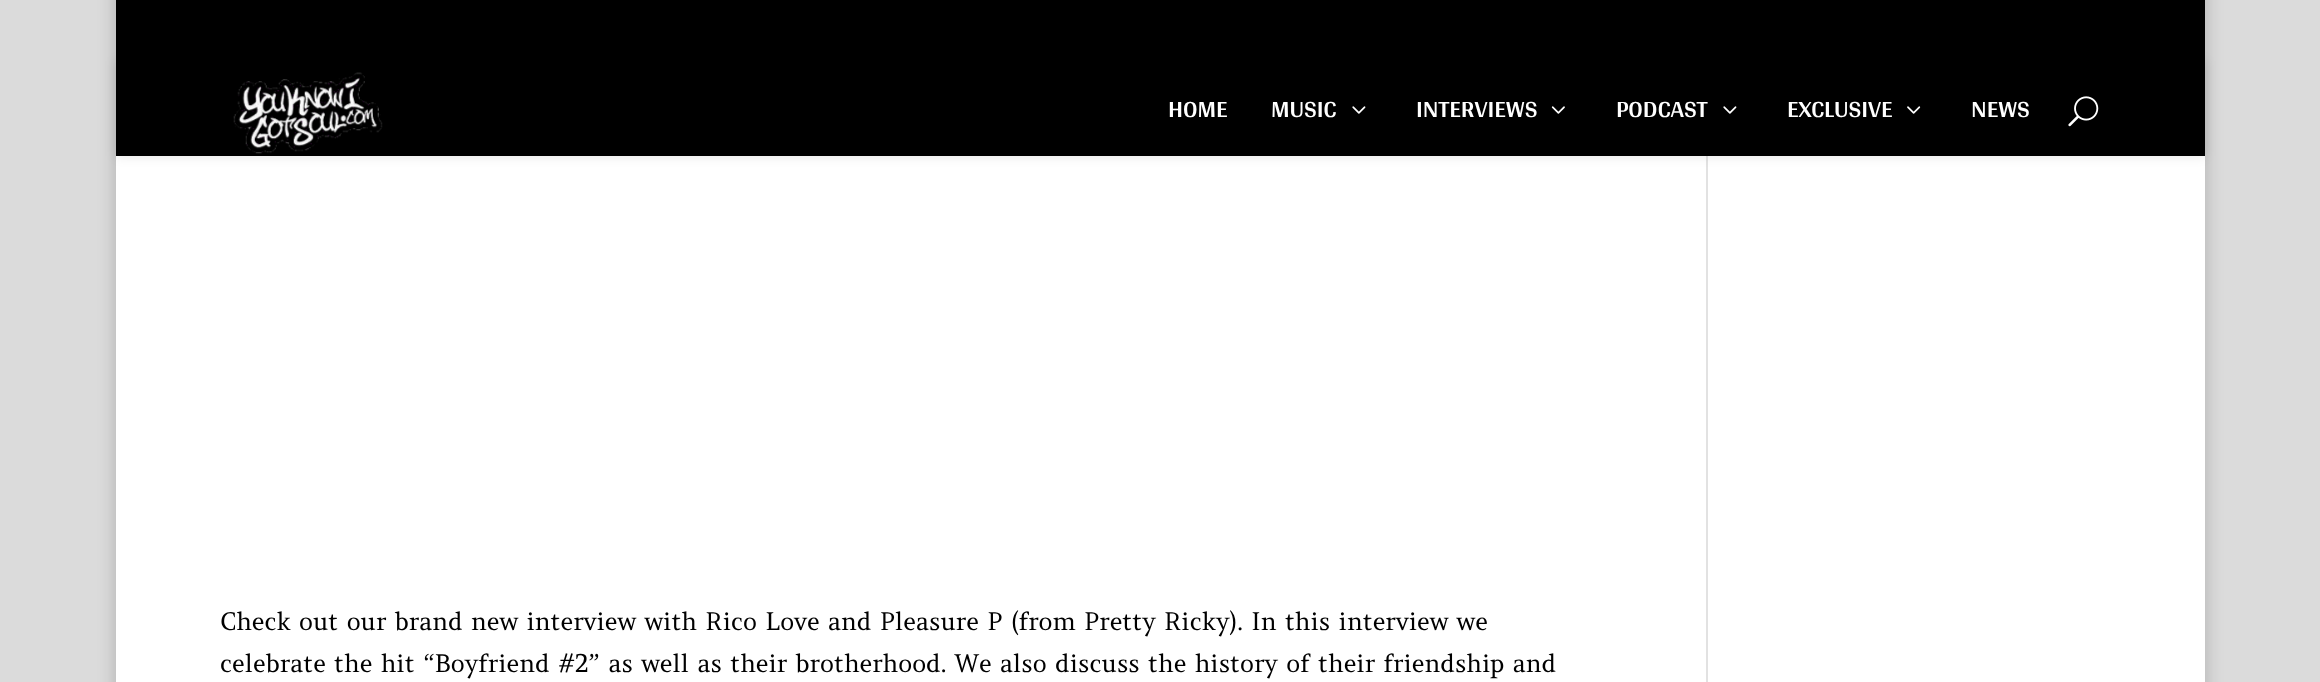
<svg xmlns="http://www.w3.org/2000/svg" width="2320" height="682" viewBox="0 0 2320 682">
  <rect width="100%" height="100%" fill="rgb(219,219,219)"/>
  <rect x="116" y="-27" width="2089" height="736" fill="rgba(0,0,0,0.2)" filter="blur(9px)"/>
  <rect x="116" y="156" width="2089" height="526" fill="rgb(255,255,255)"/>
  <rect x="1706" y="156" width="2" height="526" fill="rgb(226,226,226)"/>
  <rect x="116" y="61" width="2089" height="95" fill="rgba(0,0,0,0.1)" filter="blur(6px)"/>
  <rect x="116" y="0" width="2089" height="156" fill="rgb(0,0,0)"/>
  <image x="233" y="72" width="150" height="82" href="pic1.png"/>
  <g font-family="Arya" font-size="24.5" font-weight="bold" fill="rgb(255,255,255)">
    <text x="1168" y="117">HOME</text>
    <text x="1271" y="117">MUSIC</text>
  </g>
  <image x="1352" y="106" width="14" height="8" href="pic2.png"/>
  <text x="1416" y="117" font-family="Arya" font-size="24.5" font-weight="bold" fill="rgb(255,255,255)">INTERVIEWS</text>
  <image x="1551" y="106" width="14" height="8" href="pic3.png"/>
  <text x="1616" y="117" font-family="Arya" font-size="24.5" font-weight="bold" fill="rgb(255,255,255)">PODCAST</text>
  <image x="1723" y="106" width="14" height="8" href="pic2.png"/>
  <text x="1787" y="117" font-family="Arya" font-size="24.5" font-weight="bold" fill="rgb(255,255,255)">EXCLUSIVE</text>
  <image x="1907" y="106" width="14" height="8" href="pic4.png"/>
  <text x="1971" y="117" font-family="Arya" font-size="24.5" font-weight="bold" fill="rgb(255,255,255)">NEWS</text>
  <image x="2068" y="96" width="31" height="31" href="pic5.png"/>
  <g font-family="Amethysta" font-size="24.5" fill="rgb(0,0,0)">
    <text>
      <tspan x="220" y="630">Check out our brand new interview with Rico Love and Pleasure P (from Pretty Ricky). In this interview we</tspan>
      <tspan x="220" y="672">celebrate the hit “Boyfriend #2” as well as their brotherhood. We also discuss the history of their friendship and</tspan>
    </text>
  </g>
</svg>
